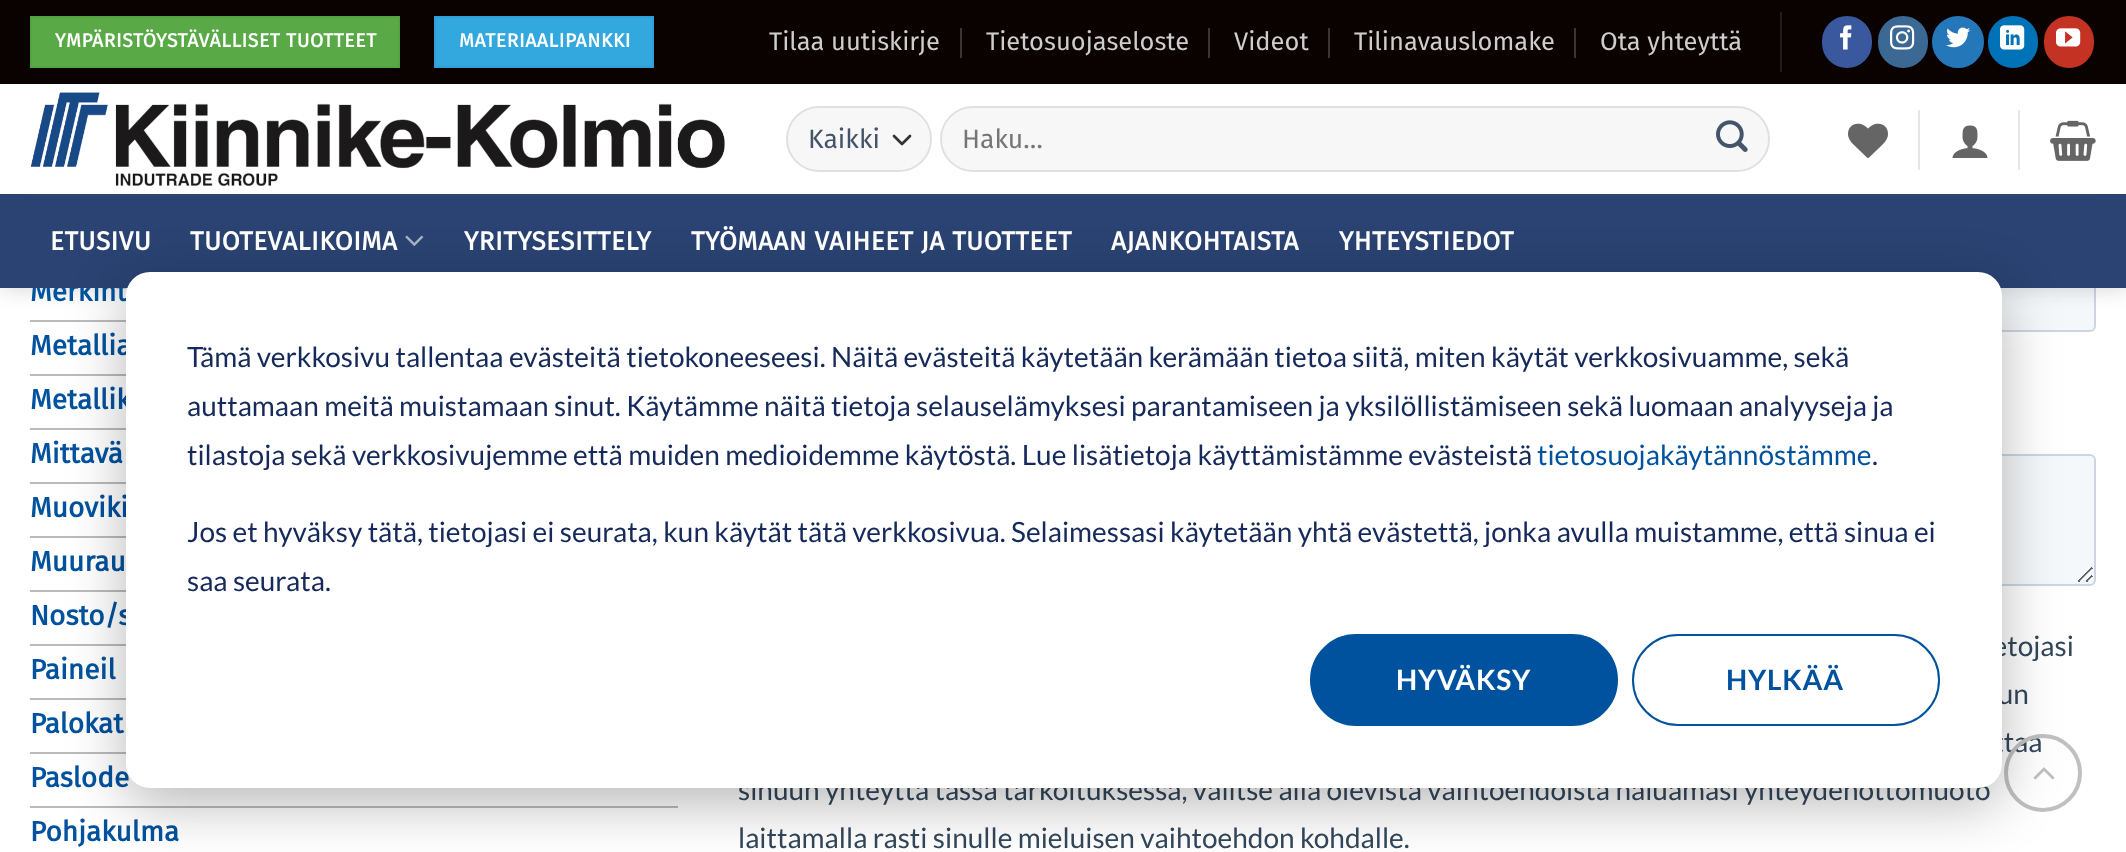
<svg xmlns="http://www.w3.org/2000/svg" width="2126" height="852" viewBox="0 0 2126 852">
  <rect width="100%" height="100%" fill="rgb(255,255,255)"/>
  <rect x="30" y="320" width="96" height="2" fill="rgb(187,187,187)"/>
  <image x="739" y="288" width="1357" height="561" href="pic12.png"/>
  <rect x="2" y="2" width="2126" height="288" fill="rgba(0,0,0,0.15)" filter="blur(10px)"/>
  <rect x="0" y="0" width="2126" height="84" fill="rgb(10,1,1)"/>
  <rect x="31" y="17" width="368" height="50" fill="rgb(89,170,71)" stroke="rgb(85,162,67)" stroke-width="2"/>
  <text x="55" y="47" font-family="Fira Sans" font-size="19.25" font-weight="bold" letter-spacing="0.6" fill="rgb(255,255,255)">YMPÄRISTÖYSTÄVÄLLISET TUOTTEET</text>
  <rect x="435" y="17" width="218" height="50" fill="rgb(50,168,223)" stroke="rgb(48,160,212)" stroke-width="2"/>
  <text x="459" y="47" font-family="Fira Sans" font-size="19.25" font-weight="bold" letter-spacing="0.6" fill="rgb(255,255,255)">MATERIAALIPANKKI</text>
  <text x="769" y="50" font-family="Fira Sans" font-size="25.5" fill="rgb(206,204,204)">Tilaa uutiskirje</text>
  <rect x="960" y="28" width="2" height="30" fill="rgb(59,52,52)"/>
  <text x="986" y="50" font-family="Fira Sans" font-size="25.5" fill="rgb(206,204,204)">Tietosuojaseloste</text>
  <rect x="1208" y="28" width="2" height="30" fill="rgb(59,52,52)"/>
  <text x="1234" y="50" font-family="Fira Sans" font-size="25.5" fill="rgb(206,204,204)">Videot</text>
  <rect x="1328" y="28" width="2" height="30" fill="rgb(59,52,52)"/>
  <text x="1354" y="50" font-family="Fira Sans" font-size="25.5" fill="rgb(206,204,204)">Tilinavauslomake</text>
  <rect x="1574" y="28" width="2" height="30" fill="rgb(59,52,52)"/>
  <text x="1600" y="50" font-family="Fira Sans" font-size="25.5" fill="rgb(206,204,204)">Ota yhteyttä</text>
  <rect x="1780" y="12" width="2" height="60" fill="rgb(35,26,26)"/>
  <rect x="1823" y="17" width="48" height="50" rx="24" fill="rgb(58,88,157)" stroke="rgb(58,88,157)" stroke-width="2"/>
  <image x="1840" y="25" width="12" height="25" href="pic1.png"/>
  <rect x="1879" y="17" width="48" height="50" rx="24" fill="rgb(59,105,148)" stroke="rgb(59,105,148)" stroke-width="2"/>
  <image x="1890" y="25" width="25" height="25" href="pic2.png"/>
  <circle cx="1958" cy="42" r="25" fill="rgb(36,120,186)" stroke="rgb(36,120,186)" stroke-width="2"/>
  <image x="1946" y="27" width="24" height="21" href="pic3.png"/>
  <rect x="1989" y="17" width="48" height="50" rx="24" fill="rgb(0,114,183)" stroke="rgb(0,114,183)" stroke-width="2"/>
  <image x="2000" y="25" width="25" height="25" href="pic4.png"/>
  <rect x="2045" y="17" width="48" height="50" rx="24" fill="rgb(195,50,35)" stroke="rgb(195,50,35)" stroke-width="2"/>
  <image x="2056" y="28" width="25" height="19" href="pic5.png"/>
  <rect x="0" y="84" width="2126" height="110" fill="rgb(255,255,255)"/>
  <image x="30" y="92" width="695" height="94" href="pic6.png"/>
  <rect x="786" y="106" width="146" height="66" rx="33" fill="rgb(247,247,247)"/>
  <path d="M894 136L902 144L910 136" fill="none" stroke="rgb(51,51,51)" stroke-width="2.7" stroke-linecap="round" stroke-linejoin="round"/>
  <rect x="787" y="107" width="144" height="64" rx="32" fill="none" stroke="rgba(0,0,0,0.09)" stroke-width="2"/>
  <text x="808" y="148" font-family="Fira Sans" font-size="26.5" fill="rgb(68,84,106)">Kaikki</text>
  <rect x="940" y="106" width="830" height="66" rx="33" fill="rgb(247,247,247)"/>
  <rect x="941" y="107" width="828" height="64" rx="32" fill="none" stroke="rgba(0,0,0,0.09)" stroke-width="2"/>
  <text x="962" y="148" font-family="Fira Sans" font-size="26.5" fill="rgb(117,117,117)">Haku…</text>
  <image x="1716" y="120" width="32" height="32" href="pic7.png"/>
  <image x="1848" y="123" width="40" height="35" href="pic8.png"/>
  <rect x="1918" y="110" width="2" height="60" fill="rgb(230,230,230)"/>
  <image x="1952" y="125" width="36" height="33" href="pic9.png"/>
  <rect x="2018" y="110" width="2" height="60" fill="rgb(230,230,230)"/>
  <image x="2050" y="120" width="46" height="41" href="pic10.png"/>
  <text x="30" y="301" font-family="Fira Sans" font-size="28" font-weight="bold" fill="rgb(0,82,158)">Merkint</text>
  <rect x="0" y="194" width="2126" height="94" fill="rgb(42,67,114)"/>
  <rect x="30" y="194" width="2066" height="2" fill="rgb(45,69,113)"/>
  <g font-family="Fira Sans" font-size="26" font-weight="bold" letter-spacing="0.5" fill="rgb(255,255,255)">
    <text x="50" y="250">ETUSIVU</text>
    <text x="190" y="250">TUOTEVALIKOIMA</text>
  </g>
  <image x="405" y="235" width="19" height="11" href="pic11.png"/>
  <g font-family="Fira Sans" font-size="26" font-weight="bold" letter-spacing="0.5" fill="rgb(255,255,255)">
    <text x="464" y="250">YRITYSESITTELY</text>
    <text x="691" y="250">TYÖMAAN VAIHEET JA TUOTTEET</text>
    <text x="1111" y="250">AJANKOHTAISTA</text>
    <text x="1339" y="250">YHTEYSTIEDOT</text>
  </g>
  <text x="30" y="355" font-family="Fira Sans" font-size="28" font-weight="bold" fill="rgb(0,82,158)">Metallia</text>
  <rect x="30" y="374" width="96" height="2" fill="rgb(187,187,187)"/>
  <text x="30" y="409" font-family="Fira Sans" font-size="28" font-weight="bold" fill="rgb(0,82,158)">Metallik</text>
  <rect x="30" y="428" width="96" height="2" fill="rgb(187,187,187)"/>
  <text x="30" y="463" font-family="Fira Sans" font-size="28" font-weight="bold" fill="rgb(0,82,158)">Mittavä</text>
  <rect x="30" y="482" width="96" height="2" fill="rgb(187,187,187)"/>
  <text x="30" y="517" font-family="Fira Sans" font-size="28" font-weight="bold" fill="rgb(0,82,158)">Muoviki</text>
  <rect x="30" y="536" width="96" height="2" fill="rgb(187,187,187)"/>
  <text x="30" y="571" font-family="Fira Sans" font-size="28" font-weight="bold" fill="rgb(0,82,158)">Muurau</text>
  <rect x="30" y="590" width="96" height="2" fill="rgb(187,187,187)"/>
  <text x="30" y="625" font-family="Fira Sans" font-size="28" font-weight="bold" fill="rgb(0,82,158)">Nosto/s</text>
  <rect x="30" y="644" width="96" height="2" fill="rgb(187,187,187)"/>
  <text x="30" y="679" font-family="Fira Sans" font-size="28" font-weight="bold" fill="rgb(0,82,158)">Paineil</text>
  <rect x="30" y="698" width="96" height="2" fill="rgb(187,187,187)"/>
  <text x="30" y="733" font-family="Fira Sans" font-size="28" font-weight="bold" fill="rgb(0,82,158)">Palokat</text>
  <rect x="30" y="752" width="96" height="2" fill="rgb(187,187,187)"/>
  <text x="30" y="787" font-family="Fira Sans" font-size="28" font-weight="bold" fill="rgb(0,82,158)">Paslode</text>
  <rect x="30" y="806" width="648" height="2" fill="rgb(187,187,187)"/>
  <text x="30" y="841" font-family="Fira Sans" font-size="28" font-weight="bold" fill="rgb(0,82,158)">Pohjakulma</text>
  <circle cx="2043" cy="773" r="37" fill="none" stroke="rgb(192,192,192)" stroke-width="4"/>
  <image x="2033" y="767" width="22" height="13" href="pic13.png"/>
  <rect x="126" y="288" width="1876" height="516" rx="24" fill="rgba(0,0,0,0.28)" filter="blur(28px)"/>
  <rect x="126" y="272" width="1876" height="516" rx="24" fill="rgb(255,255,255)"/>
  <g font-family="Lato" font-size="28" fill="rgb(21,41,90)">
    <text>
      <tspan x="187" y="367">Tämä verkkosivu tallentaa evästeitä tietokoneeseesi. Näitä evästeitä käytetään kerämään tietoa siitä, miten käytät verkkosivuamme, sekä</tspan>
      <tspan x="187" y="416">auttamaan meitä muistamaan sinut. Käytämme näitä tietoja selauselämyksesi parantamiseen ja yksilöllistämiseen sekä luomaan analyyseja ja</tspan>
      <tspan x="187" y="465">tilastoja sekä verkkosivujemme että muiden medioidemme käytöstä. Lue lisätietoja käyttämistämme evästeistä</tspan>
    </text>
  </g>
  <text x="1537" y="465" font-family="Lato" font-size="28" fill="rgb(0,82,158)">tietosuojakäytännöstämme</text>
  <g font-family="Lato" font-size="28" fill="rgb(21,41,90)">
    <text x="1872" y="465">.</text>
    <text>
      <tspan x="187" y="542">Jos et hyväksy tätä, tietojasi ei seurata, kun käytät tätä verkkosivua. Selaimessasi käytetään yhtä evästettä, jonka avulla muistamme, että sinua ei</tspan>
      <tspan x="187" y="591">saa seurata.</tspan>
    </text>
  </g>
  <rect x="1311" y="635" width="306" height="90" rx="45" fill="rgb(0,82,158)" stroke="rgb(0,82,158)" stroke-width="2"/>
  <text x="1396" y="690" font-family="Lato" font-size="28" font-weight="bold" letter-spacing="0.75" fill="rgb(255,255,255)">HYVÄKSY</text>
  <rect x="1633" y="635" width="306" height="90" rx="45" fill="none" stroke="rgb(0,82,158)" stroke-width="2"/>
  <text x="1726" y="690" font-family="Lato" font-size="28" font-weight="bold" letter-spacing="0.75" fill="rgb(0,82,158)">HYLKÄÄ</text>
</svg>
